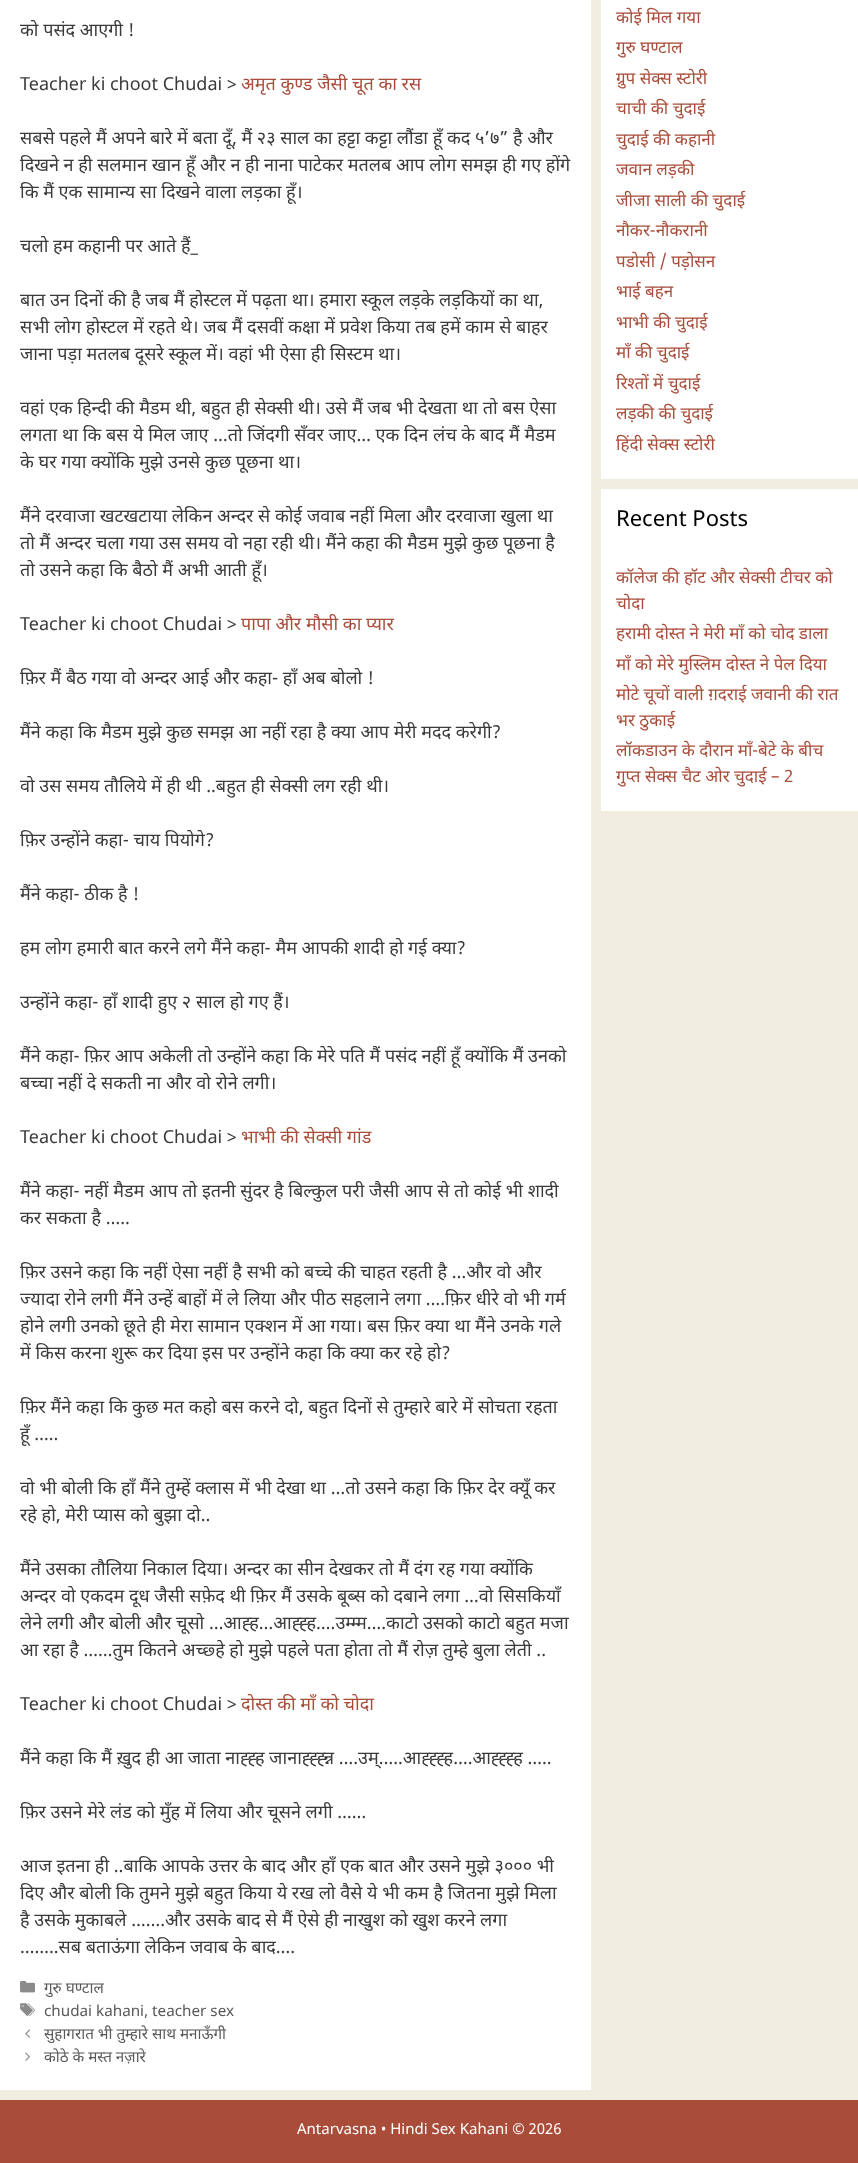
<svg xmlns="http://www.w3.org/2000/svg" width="858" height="2163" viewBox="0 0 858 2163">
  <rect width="100%" height="100%" fill="rgb(242,237,225)"/>
  <rect x="0" y="0" width="591" height="2090" fill="rgb(255,255,255)"/>
  <g font-family="Noto Sans Devanagari" font-size="18" fill="rgb(58,58,58)">
    <text x="20" y="36">को पसंद आएगी !</text>
    <text x="20" y="90">Teacher ki choot Chudai &gt;</text>
  </g>
  <text x="241" y="90" font-family="Noto Sans Devanagari" font-size="18" fill="rgb(169,77,58)">अमृत कुण्ड जैसी चूत का रस</text>
  <g font-family="Noto Sans Devanagari" font-size="18" fill="rgb(58,58,58)">
    <text>
      <tspan x="20" y="144">सबसे पहले मैं अपने बारे में बता दूँ, मैं २३ साल का हट्टा कट्टा लौंडा हूँ कद ५’७” है और</tspan>
      <tspan x="20" y="171">दिखने न ही सलमान खान हूँ और न ही नाना पाटेकर मतलब आप लोग समझ ही गए होंगे</tspan>
      <tspan x="20" y="198">कि मैं एक सामान्य सा दिखने वाला लड़का हूँ।</tspan>
    </text>
    <text x="20" y="252">चलो हम कहानी पर आते हैं_</text>
    <text>
      <tspan x="20" y="306">बात उन दिनों की है जब मैं होस्टल में पढ़ता था। हमारा स्कूल लड़के लड़कियों का था,</tspan>
      <tspan x="20" y="333">सभी लोग होस्टल में रहते थे। जब मैं दसवीं कक्षा में प्रवेश किया तब हमें काम से बाहर</tspan>
      <tspan x="20" y="360">जाना पड़ा मतलब दूसरे स्कूल में। वहां भी ऐसा ही सिस्टम था।</tspan>
    </text>
    <text>
      <tspan x="20" y="414">वहां एक हिन्दी की मैडम थी, बहुत ही सेक्सी थी। उसे मैं जब भी देखता था तो बस ऐसा</tspan>
      <tspan x="20" y="441">लगता था कि बस ये मिल जाए …तो जिंदगी सँवर जाए… एक दिन लंच के बाद मैं मैडम</tspan>
      <tspan x="20" y="468">के घर गया क्योंकि मुझे उनसे कुछ पूछना था।</tspan>
    </text>
    <text>
      <tspan x="20" y="522">मैंने दरवाजा खटखटाया लेकिन अन्दर से कोई जवाब नहीं मिला और दरवाजा खुला था</tspan>
      <tspan x="20" y="549">तो मैं अन्दर चला गया उस समय वो नहा रही थी। मैंने कहा की मैडम मुझे कुछ पूछना है</tspan>
      <tspan x="20" y="576">तो उसने कहा कि बैठो मैं अभी आती हूँ।</tspan>
    </text>
    <text x="20" y="630">Teacher ki choot Chudai &gt;</text>
  </g>
  <text x="241" y="630" font-family="Noto Sans Devanagari" font-size="18" fill="rgb(169,77,58)">पापा और मौसी का प्यार</text>
  <g font-family="Noto Sans Devanagari" font-size="18" fill="rgb(58,58,58)">
    <text x="20" y="684">फ़िर मैं बैठ गया वो अन्दर आई और कहा- हाँ अब बोलो !</text>
    <text x="20" y="738">मैंने कहा कि मैडम मुझे कुछ समझ आ नहीं रहा है क्या आप मेरी मदद करेगी?</text>
    <text x="20" y="792">वो उस समय तौलिये में ही थी ..बहुत ही सेक्सी लग रही थी।</text>
    <text x="20" y="846">फ़िर उन्होंने कहा- चाय पियोगे?</text>
    <text x="20" y="900">मैंने कहा- ठीक है !</text>
    <text x="20" y="954">हम लोग हमारी बात करने लगे मैंने कहा- मैम आपकी शादी हो गई क्या?</text>
    <text x="20" y="1008">उन्होंने कहा- हाँ शादी हुए २ साल हो गए हैं।</text>
    <text>
      <tspan x="20" y="1062">मैंने कहा- फ़िर आप अकेली तो उन्होंने कहा कि मेरे पति मैं पसंद नहीं हूँ क्योंकि मैं उनको</tspan>
      <tspan x="20" y="1089">बच्चा नहीं दे सकती ना और वो रोने लगी।</tspan>
    </text>
    <text x="20" y="1143">Teacher ki choot Chudai &gt;</text>
  </g>
  <text x="241" y="1143" font-family="Noto Sans Devanagari" font-size="18" fill="rgb(169,77,58)">भाभी की सेक्सी गांड</text>
  <g font-family="Noto Sans Devanagari" font-size="18" fill="rgb(58,58,58)">
    <text>
      <tspan x="20" y="1197">मैंने कहा- नहीं मैडम आप तो इतनी सुंदर है बिल्कुल परी जैसी आप से तो कोई भी शादी</tspan>
      <tspan x="20" y="1224">कर सकता है …..</tspan>
    </text>
    <text>
      <tspan x="20" y="1278">फ़िर उसने कहा कि नहीं ऐसा नहीं है सभी को बच्चे की चाहत रहती है …और वो और</tspan>
      <tspan x="20" y="1305">ज्यादा रोने लगी मैंने उन्हें बाहों में ले लिया और पीठ सहलाने लगा ….फ़िर धीरे वो भी गर्म</tspan>
      <tspan x="20" y="1332">होने लगी उनको छूते ही मेरा सामान एक्शन में आ गया। बस फ़िर क्या था मैंने उनके गले</tspan>
      <tspan x="20" y="1359">में किस करना शुरू कर दिया इस पर उन्होंने कहा कि क्या कर रहे हो?</tspan>
    </text>
    <text>
      <tspan x="20" y="1413">फ़िर मैंने कहा कि कुछ मत कहो बस करने दो, बहुत दिनों से तुम्हारे बारे में सोचता रहता</tspan>
      <tspan x="20" y="1440">हूँ …..</tspan>
    </text>
    <text>
      <tspan x="20" y="1494">वो भी बोली कि हाँ मैंने तुम्हें क्लास में भी देखा था …तो उसने कहा कि फ़िर देर क्यूँ कर</tspan>
      <tspan x="20" y="1521">रहे हो, मेरी प्यास को बुझा दो..</tspan>
    </text>
    <text>
      <tspan x="20" y="1575">मैंने उसका तौलिया निकाल दिया। अन्दर का सीन देखकर तो मैं दंग रह गया क्योंकि</tspan>
      <tspan x="20" y="1602">अन्दर वो एकदम दूध जैसी सफ़ेद थी फ़िर मैं उसके बूब्स को दबाने लगा …वो सिसकियाँ</tspan>
      <tspan x="20" y="1629">लेने लगी और बोली और चूसो …आह्ह…आह्ह्ह….उम्म्म….काटो उसको काटो बहुत मजा</tspan>
      <tspan x="20" y="1656">आ रहा है ……तुम कितने अच्छ्हे हो मुझे पहले पता होता तो मैं रोज़ तुम्हे बुला लेती ..</tspan>
    </text>
    <text x="20" y="1710">Teacher ki choot Chudai &gt;</text>
  </g>
  <text x="241" y="1710" font-family="Noto Sans Devanagari" font-size="18" fill="rgb(169,77,58)">दोस्त की माँ को चोदा</text>
  <g font-family="Noto Sans Devanagari" font-size="18" fill="rgb(58,58,58)">
    <text x="20" y="1764">मैंने कहा कि मैं ख़ुद ही आ जाता नाह्ह्ह जानाह्ह्ह्न्न ….उम्…..आह्ह्ह्ह….आह्ह्ह्ह …..</text>
    <text x="20" y="1818">फ़िर उसने मेरे लंड को मुँह में लिया और चूसने लगी ……</text>
    <text>
      <tspan x="20" y="1872">आज इतना ही ..बाकि आपके उत्तर के बाद और हाँ एक बात और उसने मुझे ३००० भी</tspan>
      <tspan x="20" y="1899">दिए और बोली कि तुमने मुझे बहुत किया ये रख लो वैसे ये भी कम है जितना मुझे मिला</tspan>
      <tspan x="20" y="1926">है उसके मुकाबले …….और उसके बाद से मैं ऐसे ही नाखुश को खुश करने लगा</tspan>
      <tspan x="20" y="1953">……..सब बताऊंगा लेकिन जवाब के बाद….</tspan>
    </text>
  </g>
  <image x="20" y="1980" width="15" height="13" href="pic1.png"/>
  <text x="44" y="1993" font-family="Noto Sans Devanagari" font-size="15.25" fill="rgb(89,89,89)">गुरु घण्टाल</text>
  <image x="20" y="2003" width="15" height="13" href="pic2.png"/>
  <text x="44" y="2016" font-family="Noto Sans Devanagari" font-size="15.25" fill="rgb(89,89,89)">chudai kahani, teacher sex</text>
  <image x="25" y="2029" width="5" height="9" href="pic3.png"/>
  <text x="44" y="2039" font-family="Noto Sans Devanagari" font-size="15.25" fill="rgb(89,89,89)">सुहागरात भी तुम्हारे साथ मनाऊँगी</text>
  <image x="25" y="2052" width="5" height="9" href="pic4.png"/>
  <text x="44" y="2062" font-family="Noto Sans Devanagari" font-size="15.25" fill="rgb(89,89,89)">कोठे के मस्त नज़ारे</text>
  <rect x="601" y="0" width="257" height="479" fill="rgb(255,255,255)"/>
  <g font-family="Noto Sans Devanagari" font-size="17" fill="rgb(169,77,58)">
    <text>
      <tspan x="616" y="23">कोई मिल गया</tspan>
      <tspan x="616" y="53">गुरु घण्टाल</tspan>
      <tspan x="616" y="84">ग्रुप सेक्स स्टोरी</tspan>
      <tspan x="616" y="114">चाची की चुदाई</tspan>
      <tspan x="616" y="145">चुदाई की कहानी</tspan>
      <tspan x="616" y="175">जवान लड़की</tspan>
      <tspan x="616" y="206">जीजा साली की चुदाई</tspan>
      <tspan x="616" y="236">नौकर-नौकरानी</tspan>
      <tspan x="616" y="267">पडोसी / पड़ोसन</tspan>
      <tspan x="616" y="297">भाई बहन</tspan>
      <tspan x="616" y="328">भाभी की चुदाई</tspan>
      <tspan x="616" y="358">माँ की चुदाई</tspan>
      <tspan x="616" y="389">रिश्तों में चुदाई</tspan>
      <tspan x="616" y="419">लड़की की चुदाई</tspan>
      <tspan x="616" y="450">हिंदी सेक्स स्टोरी</tspan>
    </text>
  </g>
  <rect x="601" y="489" width="257" height="322" fill="rgb(255,255,255)"/>
  <text x="616" y="526" font-family="Noto Sans Devanagari" font-size="22" fill="rgb(0,0,0)">Recent Posts</text>
  <g font-family="Noto Sans Devanagari" font-size="17" fill="rgb(169,77,58)">
    <text>
      <tspan x="616" y="583">कॉलेज की हॉट और सेक्सी टीचर को</tspan>
      <tspan x="616" y="609">चोदा</tspan>
      <tspan x="616" y="639">हरामी दोस्त ने मेरी माँ को चोद डाला</tspan>
      <tspan x="616" y="670">माँ को मेरे मुस्लिम दोस्त ने पेल दिया</tspan>
      <tspan x="616" y="700">मोटे चूचों वाली ग़दराई जवानी की रात</tspan>
      <tspan x="616" y="726">भर ठुकाई</tspan>
      <tspan x="616" y="756">लॉकडाउन के दौरान माँ-बेटे के बीच</tspan>
      <tspan x="616" y="782">गुप्त सेक्स चैट ओर चुदाई – 2</tspan>
    </text>
  </g>
  <rect x="0" y="2100" width="858" height="63" fill="rgb(169,77,58)"/>
  <text x="297" y="2134" font-family="Noto Sans Devanagari" font-size="15" fill="rgb(255,255,255)">Antarvasna • Hindi Sex Kahani © 2026</text>
</svg>
